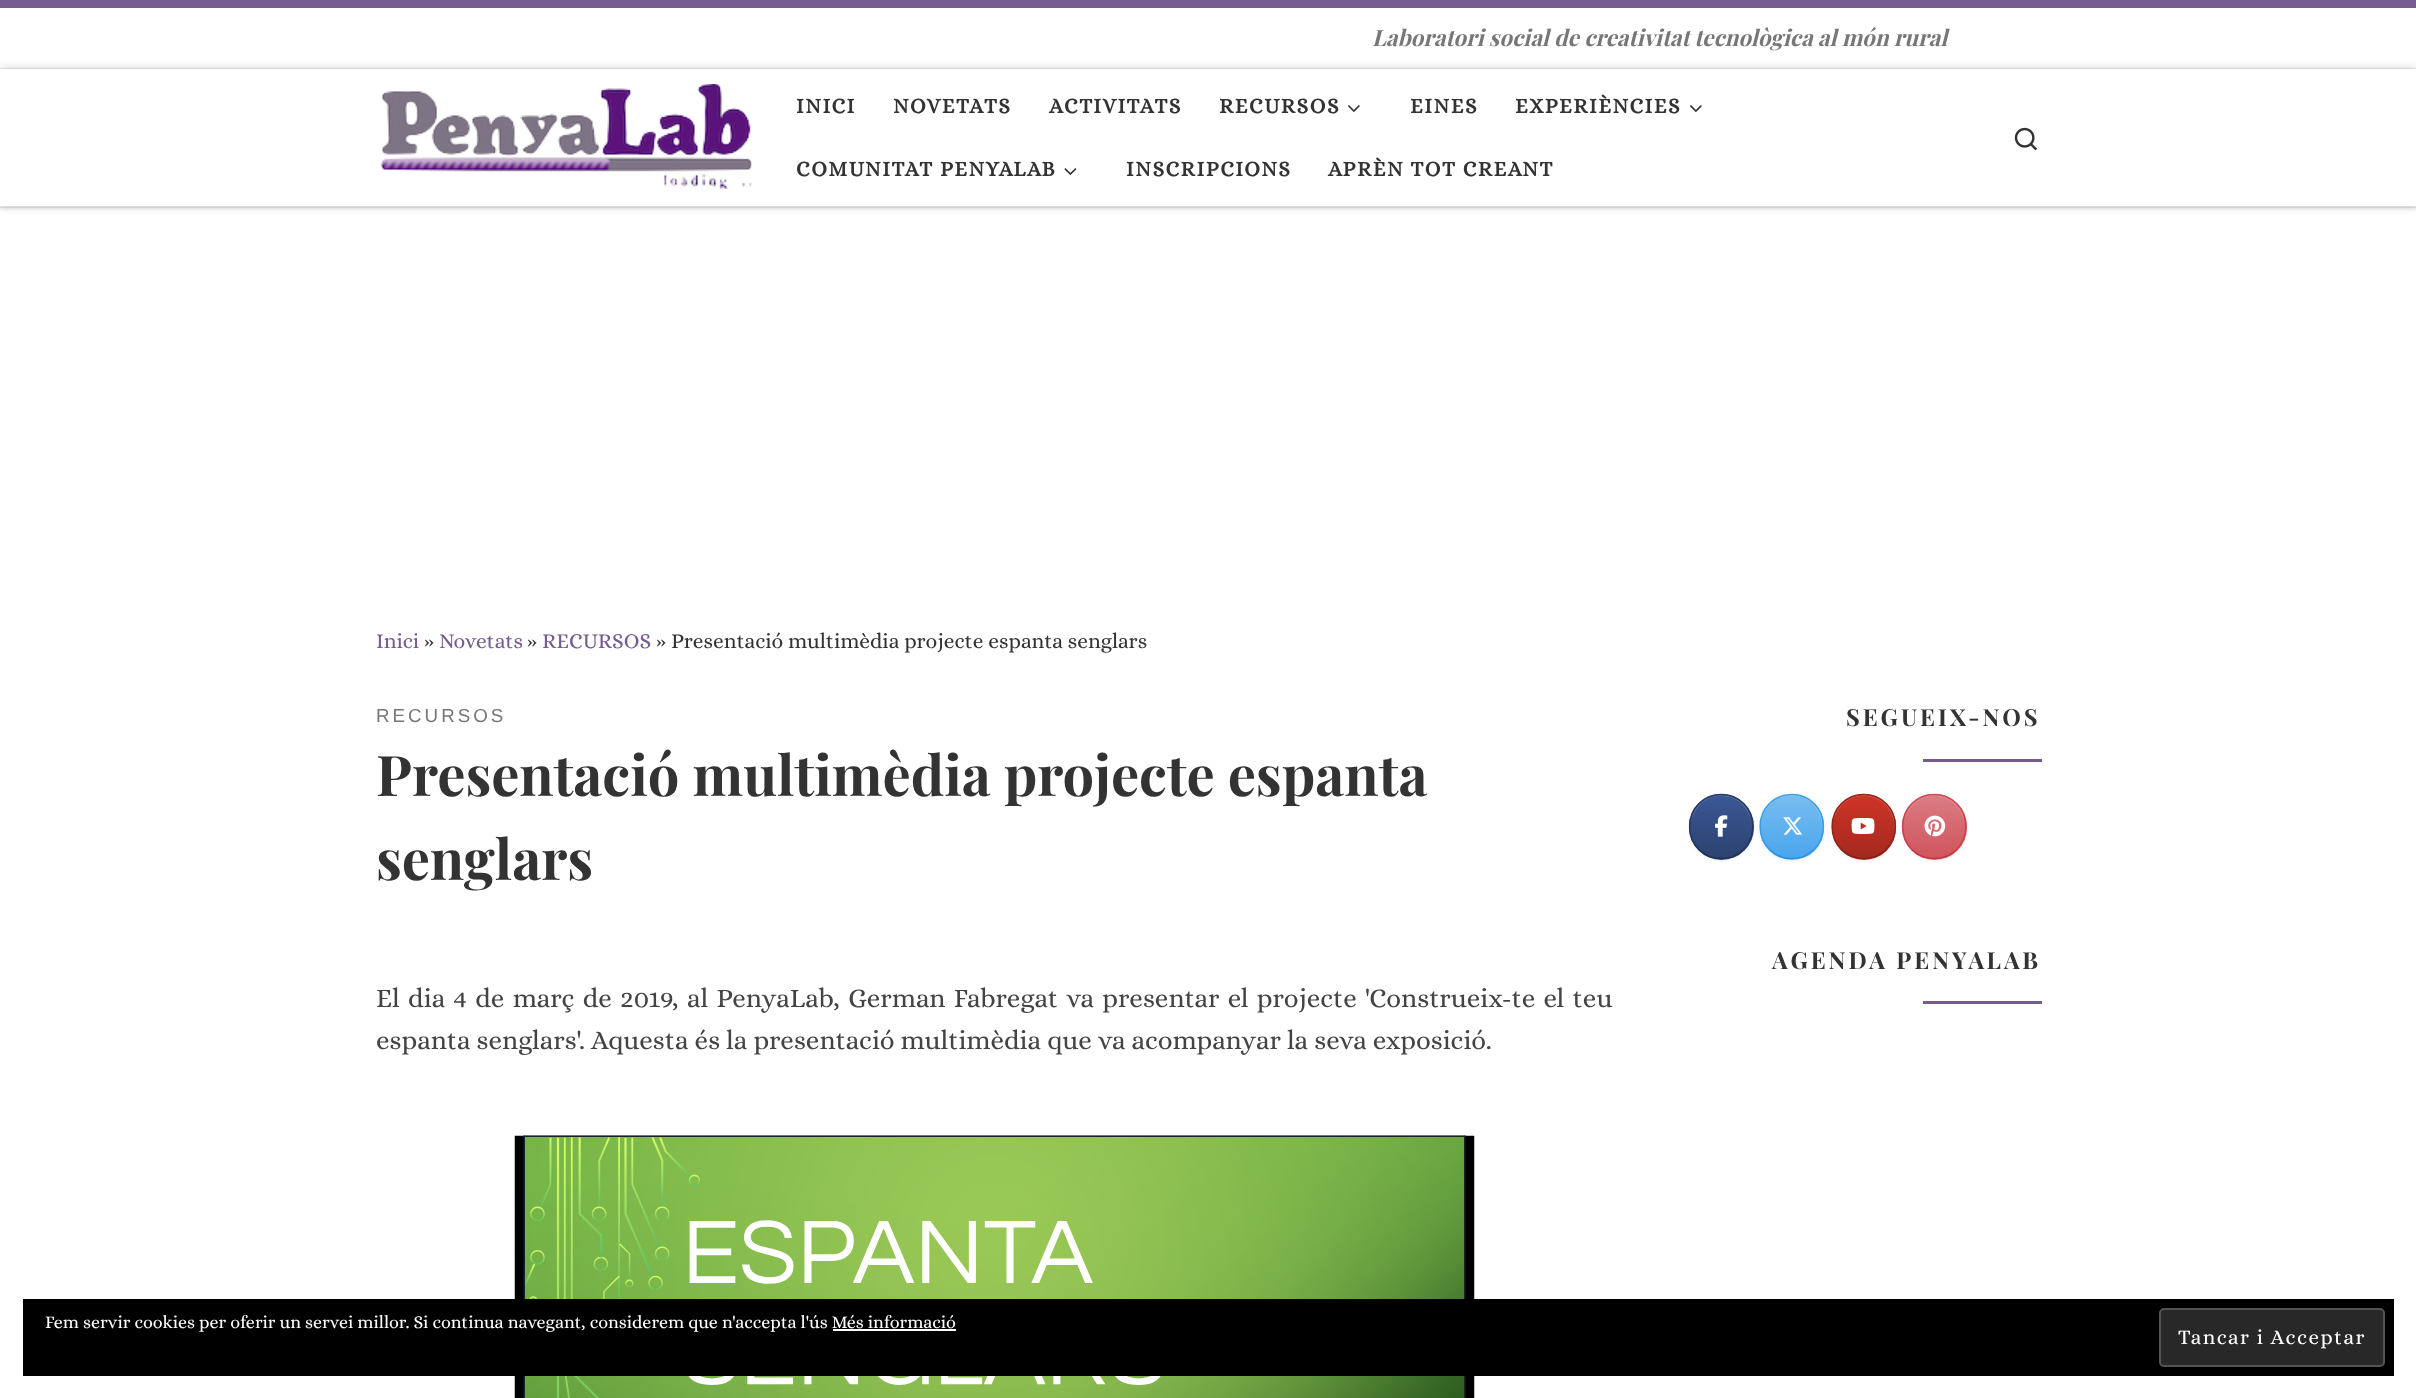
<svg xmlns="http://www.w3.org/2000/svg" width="2416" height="1398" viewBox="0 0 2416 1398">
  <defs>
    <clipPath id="clip1"><rect x="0" y="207" width="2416" height="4"/></clipPath>
    <clipPath id="clip2"><rect x="1689" y="794" width="65" height="66" rx="32.5"/></clipPath>
    <linearGradient id="g1" gradientUnits="userSpaceOnUse" x1="1691" y1="858" x2="1691" y2="795"><stop offset="0" stop-color="rgb(44,66,112)"/><stop offset="1" stop-color="rgb(58,87,149)"/></linearGradient>
    <linearGradient id="g2" gradientUnits="userSpaceOnUse" x1="1691" y1="921" x2="1691" y2="858"><stop offset="0" stop-color="rgb(44,66,112)"/><stop offset="1" stop-color="rgb(58,87,149)"/></linearGradient>
    <clipPath id="clip3"><rect x="1760" y="794" width="64" height="66" rx="32"/></clipPath>
    <linearGradient id="g3" gradientUnits="userSpaceOnUse" x1="1761" y1="858" x2="1761" y2="795"><stop offset="0" stop-color="rgb(74,166,236)"/><stop offset="1" stop-color="rgb(120,189,241)"/></linearGradient>
    <linearGradient id="g4" gradientUnits="userSpaceOnUse" x1="1761" y1="921" x2="1761" y2="858"><stop offset="0" stop-color="rgb(74,166,236)"/><stop offset="1" stop-color="rgb(120,189,241)"/></linearGradient>
    <clipPath id="clip4"><rect x="1832" y="794" width="64" height="66" rx="32"/></clipPath>
    <linearGradient id="g5" gradientUnits="userSpaceOnUse" x1="1833" y1="858" x2="1833" y2="795"><stop offset="0" stop-color="rgb(164,41,31)"/><stop offset="1" stop-color="rgb(207,52,39)"/></linearGradient>
    <linearGradient id="g6" gradientUnits="userSpaceOnUse" x1="1833" y1="921" x2="1833" y2="858"><stop offset="0" stop-color="rgb(164,41,31)"/><stop offset="1" stop-color="rgb(207,52,39)"/></linearGradient>
    <clipPath id="clip5"><rect x="1902" y="794" width="65" height="66" rx="32.5"/></clipPath>
    <linearGradient id="g7" gradientUnits="userSpaceOnUse" x1="1904" y1="858" x2="1904" y2="795"><stop offset="0" stop-color="rgb(208,84,93)"/><stop offset="1" stop-color="rgb(219,124,131)"/></linearGradient>
    <linearGradient id="g8" gradientUnits="userSpaceOnUse" x1="1904" y1="921" x2="1904" y2="858"><stop offset="0" stop-color="rgb(208,84,93)"/><stop offset="1" stop-color="rgb(219,124,131)"/></linearGradient>
  </defs>
  <rect width="100%" height="100%" fill="rgb(255,255,255)"/>
  <g clip-path="url(#clip1)">
    <rect x="0" y="3" width="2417" height="207" fill="rgba(102,102,102,0.08)" filter="blur(1.5px)"/>
  </g>
  <rect x="0" y="0" width="2416" height="8" fill="rgb(117,91,143)"/>
  <rect x="0" y="207" width="2416" height="1" fill="rgba(49,49,49,0.09)"/>
  <rect x="0" y="68" width="2416" height="1" fill="rgb(236,236,236)"/>
  <text x="1372" y="46" font-family="Playfair Display" font-size="22.5" font-weight="bold" font-style="italic" fill="rgb(119,119,119)">Laboratori social de creativitat tecnològica al món rural</text>
  <path d="M0 206V207H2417V71H2416V206Z" fill="rgb(239,239,239)"/>
  <rect x="0" y="69" width="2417" height="137" fill="rgba(0,0,0,0.2)" filter="blur(4px)"/>
  <rect x="0" y="69" width="2416" height="137" fill="rgb(255,255,255)"/>
  <image x="380" y="84" width="372" height="105" href="pic1.png"/>
  <g font-family="Alice" font-size="21.4" font-weight="bold" letter-spacing="1.5" fill="rgb(51,51,51)">
    <text x="796" y="113">INICI</text>
    <text x="893" y="113">NOVETATS</text>
    <text x="1049" y="113">ACTIVITATS</text>
    <text x="1219" y="113">RECURSOS</text>
  </g>
  <image x="1348" y="105" width="12" height="7" href="pic2.png"/>
  <g font-family="Alice" font-size="21.4" font-weight="bold" letter-spacing="1.5" fill="rgb(51,51,51)">
    <text x="1410" y="113">EINES</text>
    <text x="1515" y="113">EXPERIÈNCIES</text>
  </g>
  <image x="1690" y="105" width="12" height="7" href="pic2.png"/>
  <text x="796" y="176" font-family="Alice" font-size="21.4" font-weight="bold" letter-spacing="1.5" fill="rgb(51,51,51)">COMUNITAT PENYALAB</text>
  <image x="1064" y="168" width="13" height="7" href="pic3.png"/>
  <g font-family="Alice" font-size="21.4" font-weight="bold" letter-spacing="1.5" fill="rgb(51,51,51)">
    <text x="1126" y="176">INSCRIPCIONS</text>
    <text x="1328" y="176">APRÈN TOT CREANT</text>
  </g>
  <image x="2014" y="127" width="24" height="24" href="pic4.png"/>
  <text x="376" y="648" font-family="Alice" font-size="21.4" fill="rgb(117,91,143)">Inici</text>
  <text x="424" y="648" font-family="Alice" font-size="21.4" fill="rgb(51,51,51)">»</text>
  <text x="439" y="648" font-family="Alice" font-size="21.4" fill="rgb(117,91,143)">Novetats</text>
  <text x="527" y="648" font-family="Alice" font-size="21.4" fill="rgb(51,51,51)">»</text>
  <text x="542" y="648" font-family="Alice" font-size="21.4" fill="rgb(117,91,143)">RECURSOS</text>
  <text x="656" y="648" font-family="Alice" font-size="21.4" fill="rgb(51,51,51)">» Presentació multimèdia projecte espanta senglars</text>
  <text x="376" y="722" font-family="Liberation Sans" font-size="18.75" letter-spacing="3" fill="rgb(119,119,119)">RECURSOS</text>
  <g font-family="Playfair Display" font-size="56" font-weight="bold" fill="rgb(51,51,51)">
    <text>
      <tspan x="376" y="796">Presentació multimèdia projecte espanta</tspan>
      <tspan x="376" y="880">senglars</tspan>
    </text>
  </g>
  <g font-family="Alice" font-size="27" fill="rgb(68,68,68)">
    <text>
      <tspan x="376" y="1007" word-spacing="2.25">El dia 4 de març de 2019, al PenyaLab, German Fabregat va presentar el projecte 'Construeix-te el teu</tspan>
      <tspan x="376" y="1049">espanta senglars'. Aquesta és la presentació multimèdia que va acompanyar la seva exposició.</tspan>
    </text>
  </g>
  <image x="514" y="1135" width="961" height="263" href="pic5.png"/>
  <text x="1846" y="726" font-family="Playfair Display" font-size="23.5" font-weight="bold" letter-spacing="3" fill="rgb(51,51,51)">SEGUEIX-NOS</text>
  <rect x="1923" y="759" width="119" height="3" fill="rgb(117,91,143)"/>
  <rect x="1689" y="795" width="65" height="66" rx="32.5" fill="rgba(0,0,0,0.07)" filter="blur(1.5px)"/>
  <g clip-path="url(#clip2)">
    <rect x="1689" y="795" width="65" height="63" fill="url(#g1)"/>
    <rect x="1710" y="858" width="23" height="2" fill="url(#g2)"/>
  </g>
  <path d="M1721 796C1740 796 1752 812 1752 828C1752 785 1694 785 1691 824C1693 809 1704 796 1721 796Z" fill="rgba(255,255,255,0.2)"/>
  <path d="M1699 803.5C1711 791.5 1731.5 791.5 1743.5 803.5" fill="none" stroke="rgb(39,59,101)" stroke-width="1.5"/>
  <path d="M1743.5 803.5C1756 815.5 1756 837.5 1743.5 849.5" fill="none" stroke="rgb(37,55,94)" stroke-width="1.5"/>
  <path d="M1743.5 849.5C1731.5 861.5 1711 861.5 1699 849.5" fill="none" stroke="rgb(32,48,83)" stroke-width="1.5"/>
  <path d="M1699 849.5C1686.5 837.5 1686.5 815.5 1699 803.5" fill="none" stroke="rgb(37,55,94)" stroke-width="1.5"/>
  <image x="1715" y="815" width="13" height="22" href="pic6.png"/>
  <rect x="1760" y="795" width="64" height="66" rx="32" fill="rgba(0,0,0,0.07)" filter="blur(1.5px)"/>
  <g clip-path="url(#clip3)">
    <rect x="1760" y="795" width="64" height="63" fill="url(#g3)"/>
    <rect x="1781" y="858" width="22" height="2" fill="url(#g4)"/>
  </g>
  <path d="M1792 796C1813 796 1825 816 1822 833C1824 827 1823 820 1821 814C1807 782 1760 793 1761 827C1761 812 1773 796 1792 796Z" fill="rgba(255,255,255,0.2)"/>
  <path d="M1769.5 803.5C1781.5 791.5 1802 791.5 1814 803.5" fill="none" stroke="rgb(60,160,235)" stroke-width="1.5"/>
  <path d="M1814 803.5C1826.5 815.5 1826.5 837.5 1814 849.5" fill="none" stroke="rgb(51,155,234)" stroke-width="1.5"/>
  <path d="M1814 849.5C1802 861.5 1781.5 861.5 1769.5 849.5" fill="none" stroke="rgb(37,148,232)" stroke-width="1.5"/>
  <path d="M1769.5 849.5C1757 837.5 1757 815.5 1769.5 803.5" fill="none" stroke="rgb(51,155,234)" stroke-width="1.5"/>
  <image x="1783" y="817" width="20" height="18" href="pic7.png"/>
  <rect x="1832" y="795" width="64" height="66" rx="32" fill="rgba(0,0,0,0.07)" filter="blur(1.5px)"/>
  <g clip-path="url(#clip4)">
    <rect x="1832" y="795" width="64" height="63" fill="url(#g5)"/>
    <rect x="1853" y="858" width="22" height="2" fill="url(#g6)"/>
  </g>
  <path d="M1864 796C1885 796 1897 816 1894 833C1896 827 1895 820 1893 814C1879 782 1832 793 1833 827C1833 812 1845 796 1864 796Z" fill="rgba(255,255,255,0.2)"/>
  <path d="M1841.5 803.5C1853.5 791.5 1874 791.5 1886 803.5" fill="none" stroke="rgb(151,38,28)" stroke-width="1.5"/>
  <path d="M1886 803.5C1898.5 815.5 1898.5 837.5 1886 849.5" fill="none" stroke="rgb(143,36,27)" stroke-width="1.5"/>
  <path d="M1886 849.5C1874 861.5 1853.5 861.5 1841.5 849.5" fill="none" stroke="rgb(130,33,24)" stroke-width="1.5"/>
  <path d="M1841.5 849.5C1829 837.5 1829 815.5 1841.5 803.5" fill="none" stroke="rgb(143,36,27)" stroke-width="1.5"/>
  <image x="1851" y="818" width="24" height="16" href="pic8.png"/>
  <rect x="1902" y="795" width="65" height="66" rx="32.5" fill="rgba(0,0,0,0.07)" filter="blur(1.5px)"/>
  <g clip-path="url(#clip5)">
    <rect x="1902" y="795" width="65" height="63" fill="url(#g7)"/>
    <rect x="1923" y="858" width="23" height="2" fill="url(#g8)"/>
  </g>
  <path d="M1934 796C1953 796 1965 812 1965 828C1965 785 1907 785 1904 824C1906 809 1917 796 1934 796Z" fill="rgba(255,255,255,0.2)"/>
  <path d="M1912 803.5C1924 791.5 1944.5 791.5 1956.5 803.5" fill="none" stroke="rgb(205,72,82)" stroke-width="1.5"/>
  <path d="M1956.5 803.5C1969 815.5 1969 837.5 1956.5 849.5" fill="none" stroke="rgb(203,64,74)" stroke-width="1.5"/>
  <path d="M1956.5 849.5C1944.5 861.5 1924 861.5 1912 849.5" fill="none" stroke="rgb(197,54,65)" stroke-width="1.5"/>
  <path d="M1912 849.5C1899.5 837.5 1899.5 815.5 1912 803.5" fill="none" stroke="rgb(203,64,74)" stroke-width="1.5"/>
  <image x="1924" y="815" width="22" height="22" href="pic9.png"/>
  <text x="1772" y="969" font-family="Playfair Display" font-size="23.5" font-weight="bold" letter-spacing="3" fill="rgb(51,51,51)">AGENDA PENYALAB</text>
  <rect x="1923" y="1001" width="119" height="3" fill="rgb(117,91,143)"/>
  <rect x="23" y="1299" width="2371" height="77" fill="rgb(0,0,0)"/>
  <text x="45" y="1328" font-family="Alice" font-size="18" fill="rgb(255,255,255)">Fem servir cookies per oferir un servei millor. Si continua navegant, considerem que n'accepta l'ús Més informació</text>
  <rect x="833" y="1329" width="123" height="2" fill="rgb(255,255,255)"/>
  <rect x="2160" y="1309" width="224" height="57" rx="4" fill="rgb(40,40,40)" stroke="rgb(83,83,83)" stroke-width="2"/>
  <text x="2178" y="1344" font-family="Alice" font-size="21" letter-spacing="1.5" fill="rgb(255,255,255)">Tancar i Acceptar</text>
</svg>
